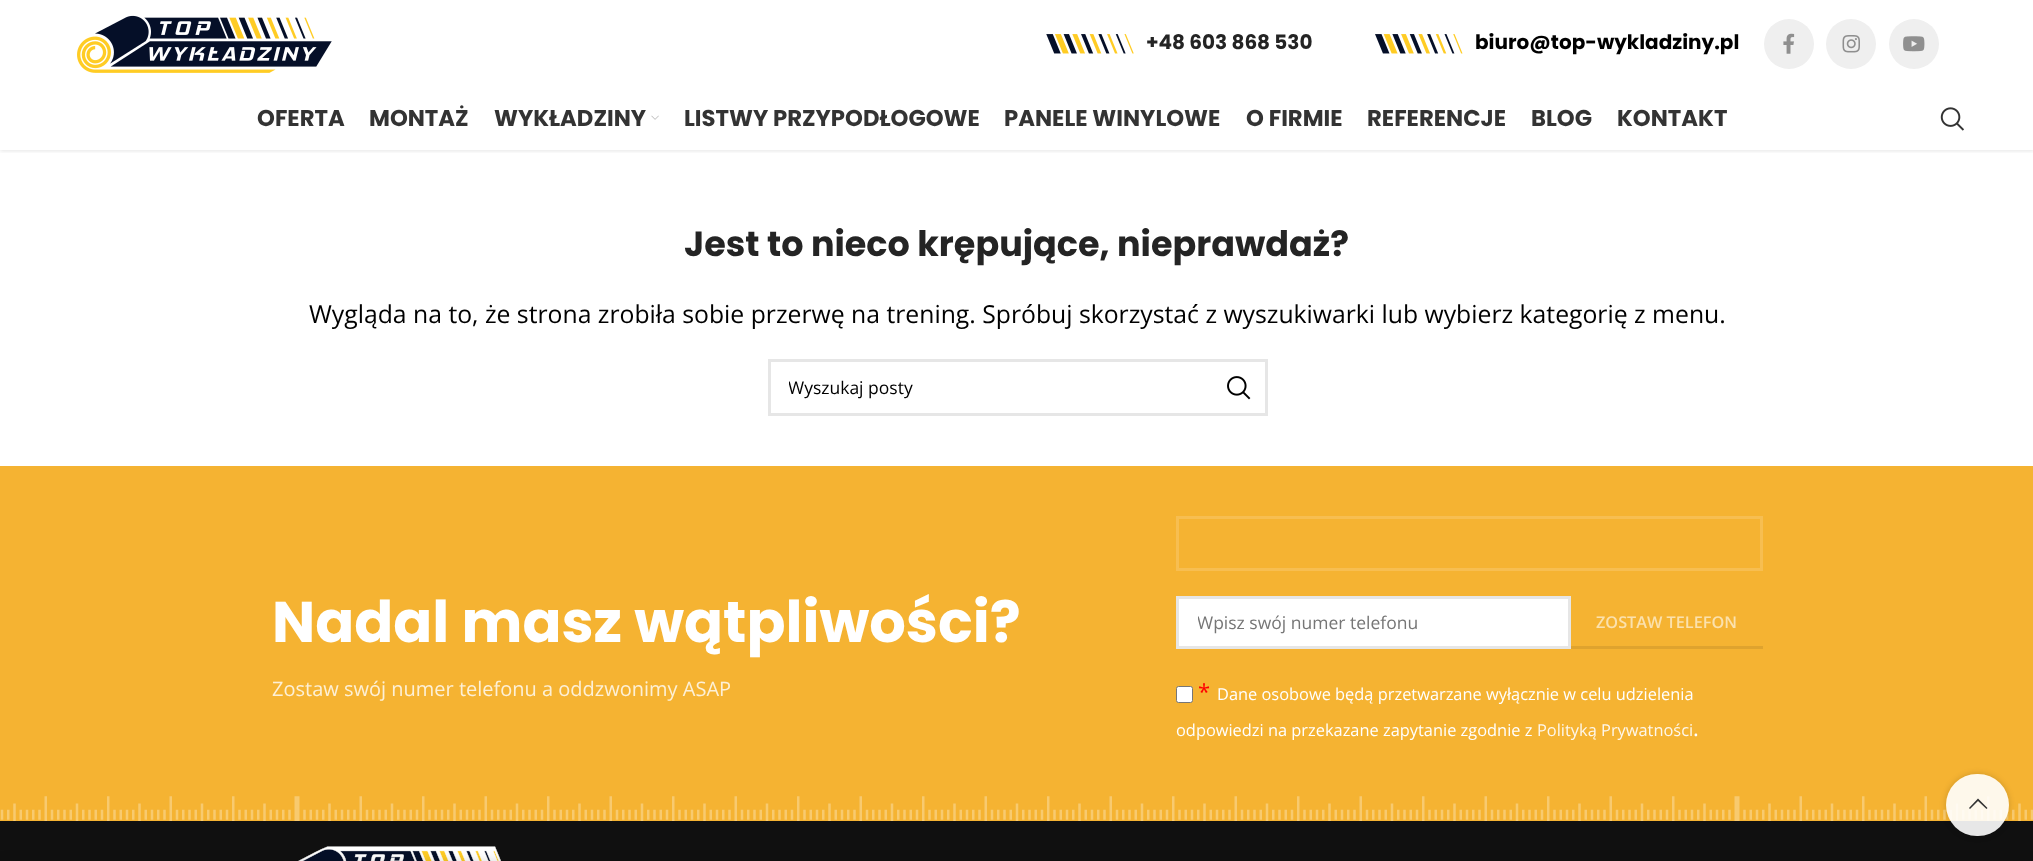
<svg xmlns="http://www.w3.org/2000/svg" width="2033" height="861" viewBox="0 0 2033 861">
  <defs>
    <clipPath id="clip1"><rect x="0" y="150" width="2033" height="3"/></clipPath>
    <clipPath id="clip2"><rect x="789" y="375" width="419" height="24"/></clipPath>
    <clipPath id="clip3"><rect x="1198" y="610" width="352" height="24"/></clipPath>
    <clipPath id="clip4"><path d="M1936 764H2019V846H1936ZM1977 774H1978C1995 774 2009 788 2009 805C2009 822 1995 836 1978 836H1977C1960 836 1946 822 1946 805C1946 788 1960 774 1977 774Z" clip-rule="evenodd"/></clipPath>
  </defs>
  <rect width="100%" height="100%" fill="rgb(255,255,255)"/>
  <g clip-path="url(#clip1)">
    <rect x="0" y="1" width="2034" height="150" fill="rgba(0,0,0,0.1)" filter="blur(2px)"/>
  </g>
  <image x="77" y="15" width="255" height="58" href="pic1.png"/>
  <image x="1046" y="34" width="88" height="20" href="pic2.png"/>
  <text x="1146" y="49" font-family="Poppins" font-size="20" font-weight="bold" fill="rgb(36,36,36)">+48 603 868 530</text>
  <image x="1375" y="34" width="88" height="20" href="pic3.png"/>
  <text x="1475" y="49" font-family="Poppins" font-size="20" font-weight="bold" fill="rgb(0,0,0)">biuro@top-wykladziny.pl</text>
  <circle cx="1789" cy="44" r="25" fill="rgb(239,239,239)"/>
  <image x="1783" y="33" width="12" height="21" href="pic4.png"/>
  <circle cx="1851" cy="44" r="25" fill="rgb(239,239,239)"/>
  <image x="1842" y="35" width="18" height="18" href="pic5.png"/>
  <circle cx="1914" cy="44" r="25" fill="rgb(239,239,239)"/>
  <image x="1903" y="36" width="22" height="16" href="pic6.png"/>
  <g font-family="Poppins" font-size="22.75" font-weight="bold" fill="rgb(51,51,51)">
    <text x="257" y="126">OFERTA</text>
    <text x="369" y="126">MONTAŻ</text>
    <text x="494" y="126">WYKŁADZINY</text>
  </g>
  <image x="651" y="115" width="8" height="5" href="pic7.png"/>
  <g font-family="Poppins" font-size="22.75" font-weight="bold" fill="rgb(51,51,51)">
    <text x="684" y="126">LISTWY PRZYPODŁOGOWE</text>
    <text x="1004" y="126">PANELE WINYLOWE</text>
    <text x="1246" y="126">O FIRMIE</text>
    <text x="1367" y="126">REFERENCJE</text>
    <text x="1531" y="126">BLOG</text>
    <text x="1617" y="126">KONTAKT</text>
  </g>
  <image x="1940" y="107" width="24" height="24" href="pic8.png"/>
  <text x="684" y="256" font-family="Poppins" font-size="35" font-weight="bold" fill="rgb(36,36,36)">Jest to nieco krępujące, nieprawdaż?</text>
  <text x="309" y="323" font-family="Open Sans" font-size="24.75" fill="rgb(0,0,0)">Wygląda na to, że strona zrobiła sobie przerwę na trening. Spróbuj skorzystać z wyszukiwarki lub wybierz kategorię z menu.</text>
  <rect x="769.5" y="360.5" width="497" height="54" fill="none" stroke="rgb(230,230,230)" stroke-width="3"/>
  <g clip-path="url(#clip2)">
    <text x="788" y="394" font-family="Open Sans" font-size="17.5" fill="rgb(0,0,0)">Wyszukaj posty</text>
  </g>
  <image x="1227" y="376" width="24" height="24" href="pic9.png"/>
  <rect x="0" y="466" width="2033" height="355" fill="rgb(245,179,50)"/>
  <image x="0" y="796" width="2033" height="25" href="pic10.png"/>
  <text x="272" y="642" font-family="Poppins" font-size="57.5" font-weight="bold" fill="rgb(255,255,255)">Nadal masz wątpliwości?</text>
  <text x="272" y="696" font-family="Open Sans" font-size="20" fill="rgb(253,240,214)">Zostaw swój numer telefonu a oddzwonimy ASAP</text>
  <rect x="1177.5" y="517.5" width="584" height="52" fill="none" stroke="rgb(247,190,81)" stroke-width="3"/>
  <rect x="1177.5" y="597.5" width="392" height="50" fill="rgb(255,255,255)" stroke="rgb(230,230,230)" stroke-width="3"/>
  <g clip-path="url(#clip3)">
    <text x="1197" y="629" font-family="Open Sans" font-size="17.5" fill="rgb(118,118,118)">Wpisz swój numer telefonu</text>
  </g>
  <rect x="1571" y="646" width="192" height="3" fill="rgb(223,163,46)"/>
  <text x="1596" y="628" font-family="Open Sans" font-size="16.25" font-weight="600" fill="rgb(251,225,173)">ZOSTAW TELEFON</text>
  <rect x="1176.5" y="686.5" width="16" height="16" rx="2" fill="rgb(255,255,255)" stroke="rgb(118,118,118)"/>
  <text x="1198" y="700" font-family="Open Sans" font-size="22" fill="rgb(255,0,0)">*</text>
  <g font-family="Open Sans" font-size="16.4" fill="rgb(255,255,255)">
    <text x="1217" y="700">Dane osobowe będą przetwarzane wyłącznie w celu udzielenia</text>
    <text x="1176" y="736">odpowiedzi na przekazane zapytanie zgodnie z</text>
  </g>
  <text x="1537" y="736" font-family="Open Sans" font-size="16.4" fill="rgb(254,247,235)">Polityką Prywatności</text>
  <text x="1693" y="736" font-family="Open Sans" font-size="22" fill="rgb(255,255,255)">.</text>
  <rect x="0" y="821" width="2033" height="40" fill="rgb(16,16,16)"/>
  <image x="298" y="846" width="203" height="15" href="pic11.png"/>
  <g clip-path="url(#clip4)">
    <rect x="1946" y="774" width="63" height="62" rx="31" fill="rgba(0,0,0,0.17)" filter="blur(3px)"/>
  </g>
  <rect x="1946" y="774" width="63" height="62" rx="31" fill="rgba(255,255,255,0.9)"/>
  <path d="M1986.5 809L1987.5 808L1978 798.5L1969 808L1970 809L1978 801Z" fill="rgb(51,51,51)"/>
  <rect x="0" y="861" width="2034" height="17" fill="rgba(0,0,0,0.14)" filter="blur(5.5px)"/>
</svg>
